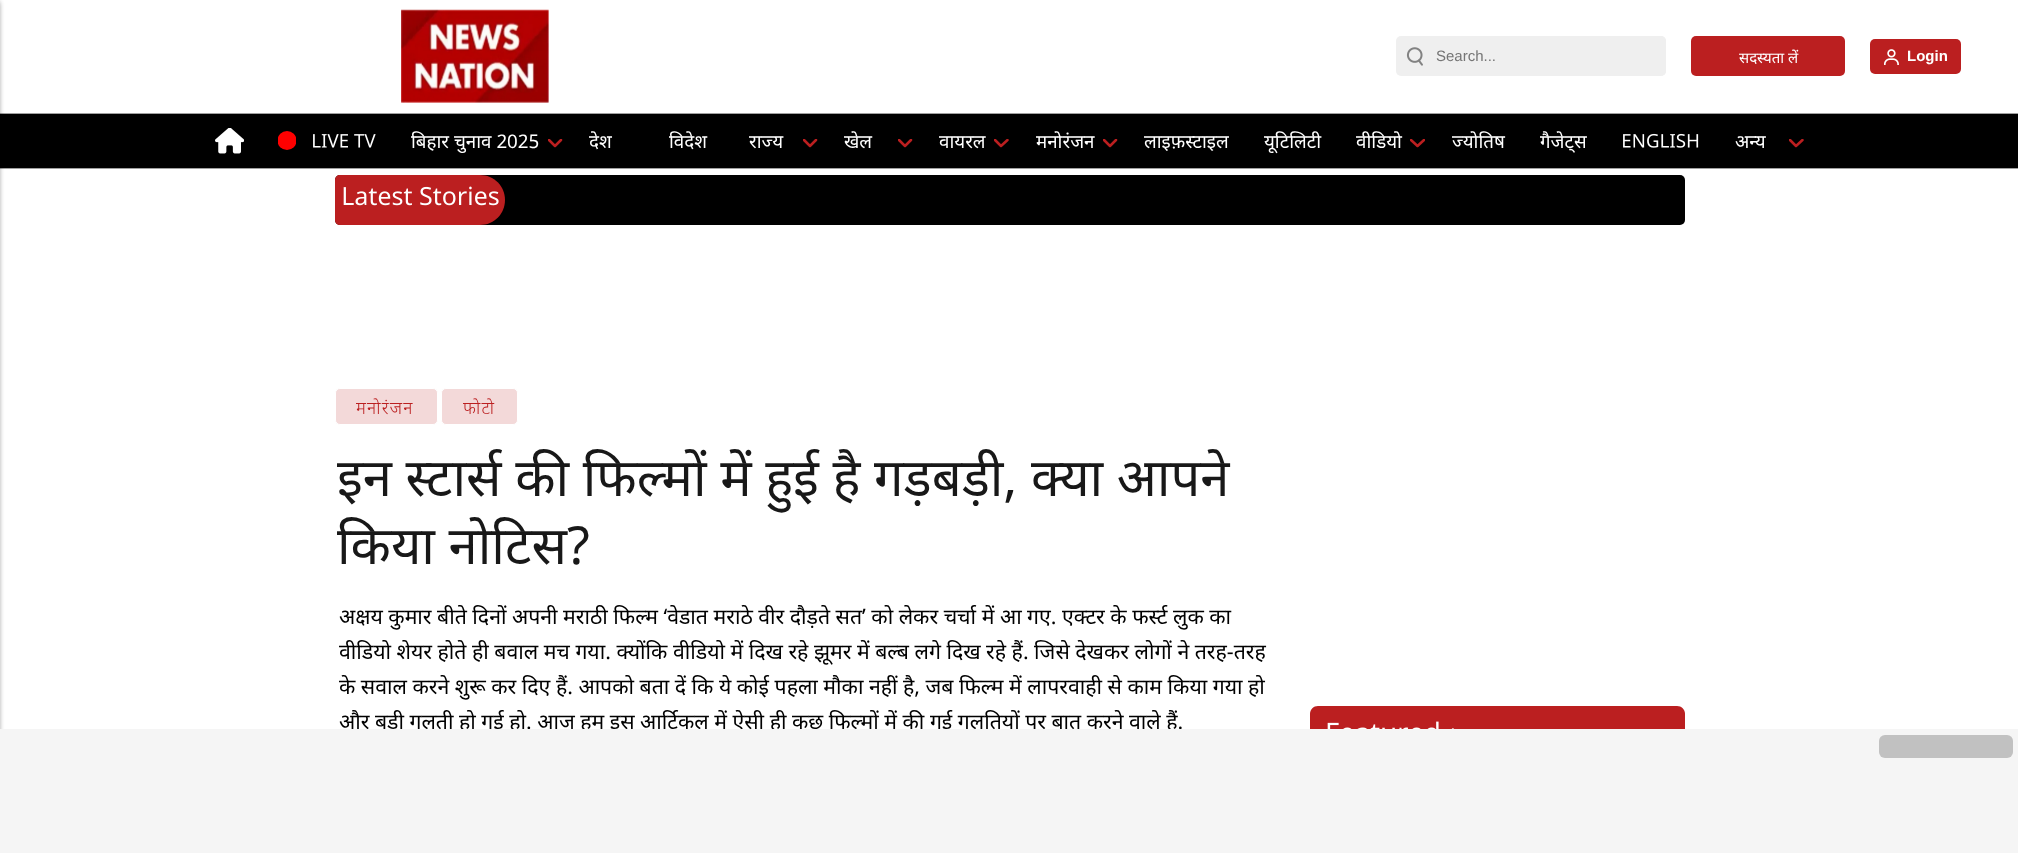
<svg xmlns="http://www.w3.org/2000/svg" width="2018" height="853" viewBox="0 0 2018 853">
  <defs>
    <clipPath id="clip1"><rect x="278" y="131" width="18" height="19"/></clipPath>
    <clipPath id="clip2"><rect x="548" y="139" width="15" height="9"/></clipPath>
    <clipPath id="clip3"><rect x="803" y="139" width="15" height="9"/></clipPath>
    <clipPath id="clip4"><rect x="898" y="139" width="15" height="9"/></clipPath>
    <clipPath id="clip5"><rect x="994" y="139" width="15" height="9"/></clipPath>
    <clipPath id="clip6"><rect x="1103" y="139" width="15" height="9"/></clipPath>
    <clipPath id="clip7"><rect x="1410" y="139" width="15" height="9"/></clipPath>
    <clipPath id="clip8"><rect x="1789" y="139" width="15" height="9"/></clipPath>
    <clipPath id="clip9"><rect x="335" y="586" width="938" height="210"/></clipPath>
  </defs>
  <rect width="100%" height="100%" fill="rgb(255,255,255)"/>
  <rect x="0" y="113" width="2018" height="1" fill="rgb(160,160,160)"/>
  <rect x="0" y="168" width="2018" height="1" fill="rgb(160,160,160)"/>
  <rect x="0" y="114" width="2018" height="54" fill="rgb(0,0,0)"/>
  <rect x="-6" y="3" width="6" height="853" fill="rgba(0,0,0,0.22)" filter="blur(2px)"/>
  <rect x="-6" y="0" width="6" height="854" fill="rgba(0,0,0,0.12)" filter="blur(2px)"/>
  <image x="401" y="9" width="148" height="94" href="pic1.png"/>
  <rect x="1396" y="36" width="270" height="40" rx="5" fill="rgb(239,239,239)"/>
  <image x="1406" y="47" width="17" height="19" href="pic2.png"/>
  <rect x="1434" y="36" width="232" height="40" rx="5" fill="rgb(239,239,239)"/>
  <text x="1436" y="61" font-family="Liberation Sans" font-size="15" fill="rgb(117,117,117)">Search...</text>
  <rect x="1691" y="36" width="154" height="40" rx="5" fill="rgb(187,31,32)"/>
  <text x="1739" y="63" font-family="Noto Sans" font-size="15" fill="rgb(255,255,255)">सदस्यता लें</text>
  <rect x="1870" y="39" width="91" height="35" rx="5" fill="rgb(187,31,32)"/>
  <image x="1884" y="49" width="15" height="16" href="pic3.png"/>
  <text x="1907" y="61" font-family="Liberation Sans" font-size="15" font-weight="bold" fill="rgb(255,255,255)">Login</text>
  <image x="215" y="128" width="29" height="26" href="pic4.png"/>
  <g clip-path="url(#clip1)">
    <circle cx="287" cy="140.5" r="9.5" fill="rgb(255,0,0)"/>
  </g>
  <image x="313" y="134" width="63" height="14" href="pic5.png"/>
  <text x="411" y="148" font-family="Noto Sans" font-size="18.75" fill="rgb(255,255,255)">बिहार चुनाव 2025</text>
  <g clip-path="url(#clip2)">
    <path d="M549 140L555 146L561 140" fill="none" stroke="rgb(187,31,32)" stroke-width="2.5" stroke-linecap="round" stroke-linejoin="round"/>
  </g>
  <g font-family="Noto Sans" font-size="18.75" fill="rgb(255,255,255)">
    <text x="589" y="148">देश</text>
    <text x="669" y="148">विदेश</text>
    <text x="749" y="148">राज्य</text>
  </g>
  <g clip-path="url(#clip3)">
    <path d="M804 140L810 146L816 140" fill="none" stroke="rgb(187,31,32)" stroke-width="2.5" stroke-linecap="round" stroke-linejoin="round"/>
  </g>
  <text x="844" y="148" font-family="Noto Sans" font-size="18.75" fill="rgb(255,255,255)">खेल</text>
  <g clip-path="url(#clip4)">
    <path d="M899 140L905 146L911 140" fill="none" stroke="rgb(187,31,32)" stroke-width="2.5" stroke-linecap="round" stroke-linejoin="round"/>
  </g>
  <text x="939" y="148" font-family="Noto Sans" font-size="18.75" fill="rgb(255,255,255)">वायरल</text>
  <g clip-path="url(#clip5)">
    <path d="M995 140L1001 146L1007.5 140" fill="none" stroke="rgb(187,31,32)" stroke-width="2.5" stroke-linecap="round" stroke-linejoin="round"/>
  </g>
  <text x="1036" y="148" font-family="Noto Sans" font-size="18.75" fill="rgb(255,255,255)">मनोरंजन</text>
  <g clip-path="url(#clip6)">
    <path d="M1104 140L1110 146L1116 140" fill="none" stroke="rgb(187,31,32)" stroke-width="2.5" stroke-linecap="round" stroke-linejoin="round"/>
  </g>
  <g font-family="Noto Sans" font-size="18.75" fill="rgb(255,255,255)">
    <text x="1144" y="148">लाइफ़स्टाइल</text>
    <text x="1264" y="148">यूटिलिटी</text>
    <text x="1356" y="148">वीडियो</text>
  </g>
  <g clip-path="url(#clip7)">
    <path d="M1411 140L1417.5 146L1424 140" fill="none" stroke="rgb(187,31,32)" stroke-width="2.5" stroke-linecap="round" stroke-linejoin="round"/>
  </g>
  <g font-family="Noto Sans" font-size="18.75" fill="rgb(255,255,255)">
    <text x="1452" y="148">ज्योतिष</text>
    <text x="1540" y="148">गैजेट्स</text>
  </g>
  <image x="1623" y="133" width="76" height="15" href="pic6.png"/>
  <text x="1735" y="148" font-family="Noto Sans" font-size="18.75" fill="rgb(255,255,255)">अन्य</text>
  <g clip-path="url(#clip8)">
    <path d="M1790 140L1796 146L1802.5 140" fill="none" stroke="rgb(187,31,32)" stroke-width="2.5" stroke-linecap="round" stroke-linejoin="round"/>
  </g>
  <rect x="335" y="175" width="1350" height="50" rx="5" fill="rgb(0,0,0)"/>
  <path d="M340 175H480C494 175 505 186 505 200C505 214 494 225 480 225H340C337 225 335 223 335 220V180C335 177 337 175 340 175Z" fill="rgb(187,31,32)"/>
  <image x="343" y="186" width="156" height="20" href="pic7.png"/>
  <rect x="335.5" y="388.5" width="102" height="36" rx="4.5" fill="rgb(243,217,217)" stroke="rgb(255,255,255)"/>
  <text x="356" y="414" font-family="Noto Sans" font-size="17.5" font-weight="300" letter-spacing="1.25" fill="rgb(187,31,32)">मनोरंजन</text>
  <rect x="441.5" y="388.5" width="76" height="36" rx="4.5" fill="rgb(243,217,217)" stroke="rgb(255,255,255)"/>
  <text x="463" y="414" font-family="Noto Sans" font-size="17.5" font-weight="300" letter-spacing="1.25" fill="rgb(187,31,32)">फोटो</text>
  <g font-family="Noto Sans" font-size="52.5" fill="rgb(24,24,24)">
    <text>
      <tspan x="337" y="496">इन स्टार्स की फिल्मों में हुई है गड़बड़ी, क्या आपने</tspan>
      <tspan x="337" y="564">किया नोटिस?</tspan>
    </text>
  </g>
  <text x="339" y="624" font-family="Noto Sans" font-size="21.25" fill="rgb(0,0,0)">अक्षय कुमार बीते दिनों अपनी मराठी फिल्म ‘वेडात मराठे वीर दौड़ते सत’ को लेकर चर्चा में आ गए. एक्टर के फर्स्ट लुक का</text>
  <g clip-path="url(#clip9)">
    <g font-family="Noto Sans" font-size="21.25" fill="rgb(0,0,0)">
      <text>
        <tspan x="339" y="659">वीडियो शेयर होते ही बवाल मच गया. क्योंकि वीडियो में दिख रहे झूमर में बल्ब लगे दिख रहे हैं. जिसे देखकर लोगों ने तरह-तरह</tspan>
        <tspan x="339" y="694">के सवाल करने शुरू कर दिए हैं. आपको बता दें कि ये कोई पहला मौका नहीं है, जब फिल्म में लापरवाही से काम किया गया हो</tspan>
      </text>
    </g>
  </g>
  <text x="339" y="729" font-family="Noto Sans" font-size="21.25" fill="rgb(0,0,0)">और बड़ी गलती हो गई हो. आज हम इस आर्टिकल में ऐसी ही कुछ फिल्मों में की गई गलतियों पर बात करने वाले हैं.</text>
  <path d="M1318 706H1677C1681.5 706 1685 709.5 1685 714V758H1310V714C1310 709.5 1313.5 706 1318 706Z" fill="rgb(187,31,32)"/>
  <image x="1327" y="721" width="112" height="8" href="pic8.png"/>
  <path d="M1453 728L1460 735L1458 737L1451 729.5Z" fill="rgb(255,255,255)"/>
  <rect x="0" y="729" width="2018" height="124" fill="rgb(245,245,245)"/>
  <rect x="1879" y="735" width="134" height="23" rx="6" fill="rgb(193,193,193)"/>
</svg>
